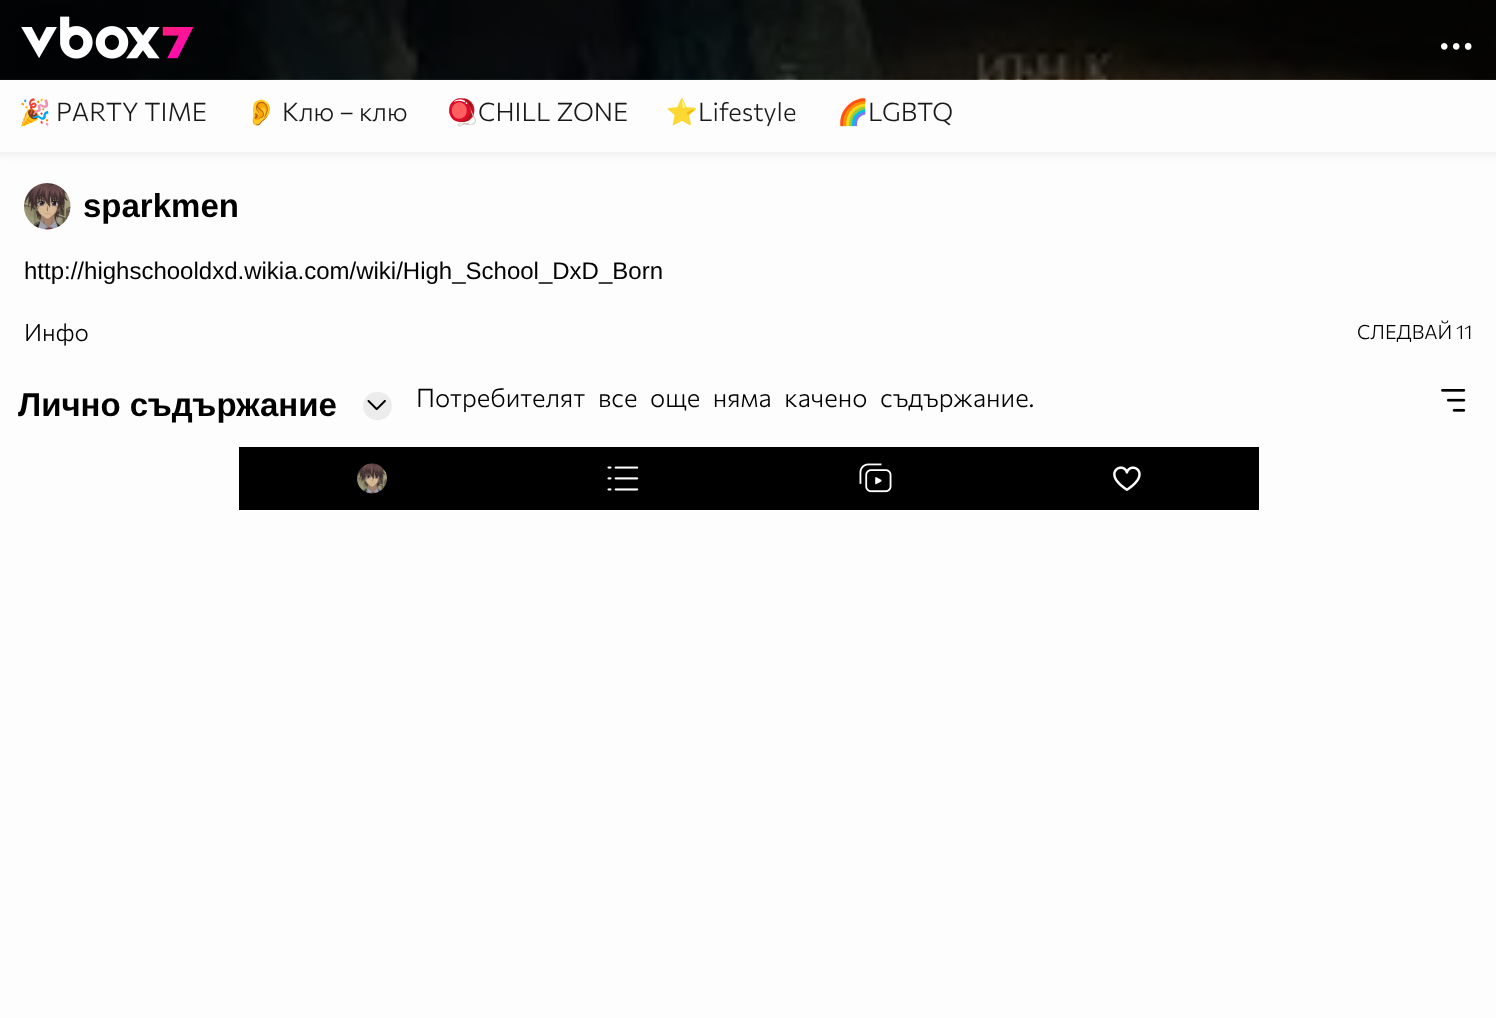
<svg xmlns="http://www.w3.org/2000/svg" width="1496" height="1018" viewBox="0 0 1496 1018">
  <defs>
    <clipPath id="clip1"><path d="M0 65H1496V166H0ZM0 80H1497V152H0Z" clip-rule="evenodd"/></clipPath>
  </defs>
  <rect width="100%" height="100%" fill="rgb(253,253,253)"/>
  <g clip-path="url(#clip1)">
    <rect x="-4" y="75" width="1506" height="81" fill="rgba(0,0,0,0.05)" filter="blur(3px)"/>
  </g>
  <rect x="0" y="79" width="1496" height="1" fill="rgb(26,26,26)"/>
  <text x="19" y="121" font-family="Noto Color Emoji" font-size="25.5" fill="rgb(25,25,25)">🎉</text>
  <text x="56" y="121" word-spacing="1" font-family="Commissioner" font-size="25.5" font-weight="300" fill="rgb(25,25,25)">PARTY TIME</text>
  <text x="245" y="121" font-family="Noto Color Emoji" font-size="25.5" fill="rgb(25,25,25)">👂</text>
  <text x="282" y="121" font-family="Commissioner" font-size="25.5" font-weight="300" fill="rgb(25,25,25)">Клю – клю</text>
  <text x="446" y="121" font-family="Noto Color Emoji" font-size="25.5" fill="rgb(25,25,25)">🪀</text>
  <text x="478" y="121" word-spacing="1" font-family="Commissioner" font-size="25.5" font-weight="300" fill="rgb(25,25,25)">CHILL ZONE</text>
  <text x="666" y="121" font-family="Noto Color Emoji" font-size="25.5" fill="rgb(25,25,25)">⭐</text>
  <text x="698" y="121" font-family="Commissioner" font-size="25.5" font-weight="300" fill="rgb(25,25,25)">Lifestyle</text>
  <text x="837" y="121" font-family="Noto Color Emoji" font-size="25.5" fill="rgb(25,25,25)">🌈</text>
  <text x="868" y="121" font-family="Commissioner" font-size="25.5" font-weight="300" fill="rgb(25,25,25)">LGBTQ</text>
  <rect x="0" y="79" width="1496" height="1" fill="rgba(0,0,0,0.35)"/>
  <image x="0" y="0" width="1496" height="80" href="pic1.png"/>
  <image x="21" y="16" width="173" height="43" href="pic2.png"/>
  <image x="1441" y="42" width="31" height="8" href="pic3.png"/>
  <image x="23" y="183" width="48" height="47" href="pic4.png"/>
  <text x="83" y="217" font-family="Liberation Sans" font-size="33" font-weight="bold" fill="rgb(0,0,0)">sparkmen</text>
  <text x="24" y="279" font-family="Liberation Sans" font-size="24" fill="rgb(0,0,0)">http://highschooldxd.wikia.com/wiki/High_School_DxD_Born</text>
  <text x="24" y="341" font-family="Commissioner" font-size="24" font-weight="300" fill="rgb(0,0,0)">Инфо</text>
  <g font-family="Commissioner" font-size="19.5" font-weight="300" fill="rgb(0,0,0)">
    <text x="1357" y="339">СЛЕДВАЙ</text>
    <text x="1456" y="339">11</text>
  </g>
  <text x="18" y="416" font-family="Liberation Sans" font-size="33" font-weight="bold" fill="rgb(0,0,0)">Лично съдържание</text>
  <rect x="363" y="392" width="29" height="28" rx="14" fill="rgb(236,236,236)"/>
  <image x="367" y="400" width="19" height="11" href="pic5.png"/>
  <image x="1441" y="389" width="25" height="23" href="pic6.png"/>
  <text x="416" y="407" word-spacing="7.75" font-family="Commissioner" font-size="25.5" font-weight="300" fill="rgb(0,0,0)">Потребителят все още няма качено съдържание.</text>
  <rect x="239" y="447" width="1020" height="63" fill="rgb(0,0,0)"/>
  <image x="357" y="463" width="30" height="31" href="pic7.png"/>
  <image x="607" y="466" width="32" height="25" href="pic8.png"/>
  <image x="859" y="463" width="33" height="30" href="pic9.png"/>
  <image x="1113" y="466" width="28" height="25" href="pic10.png"/>
</svg>
